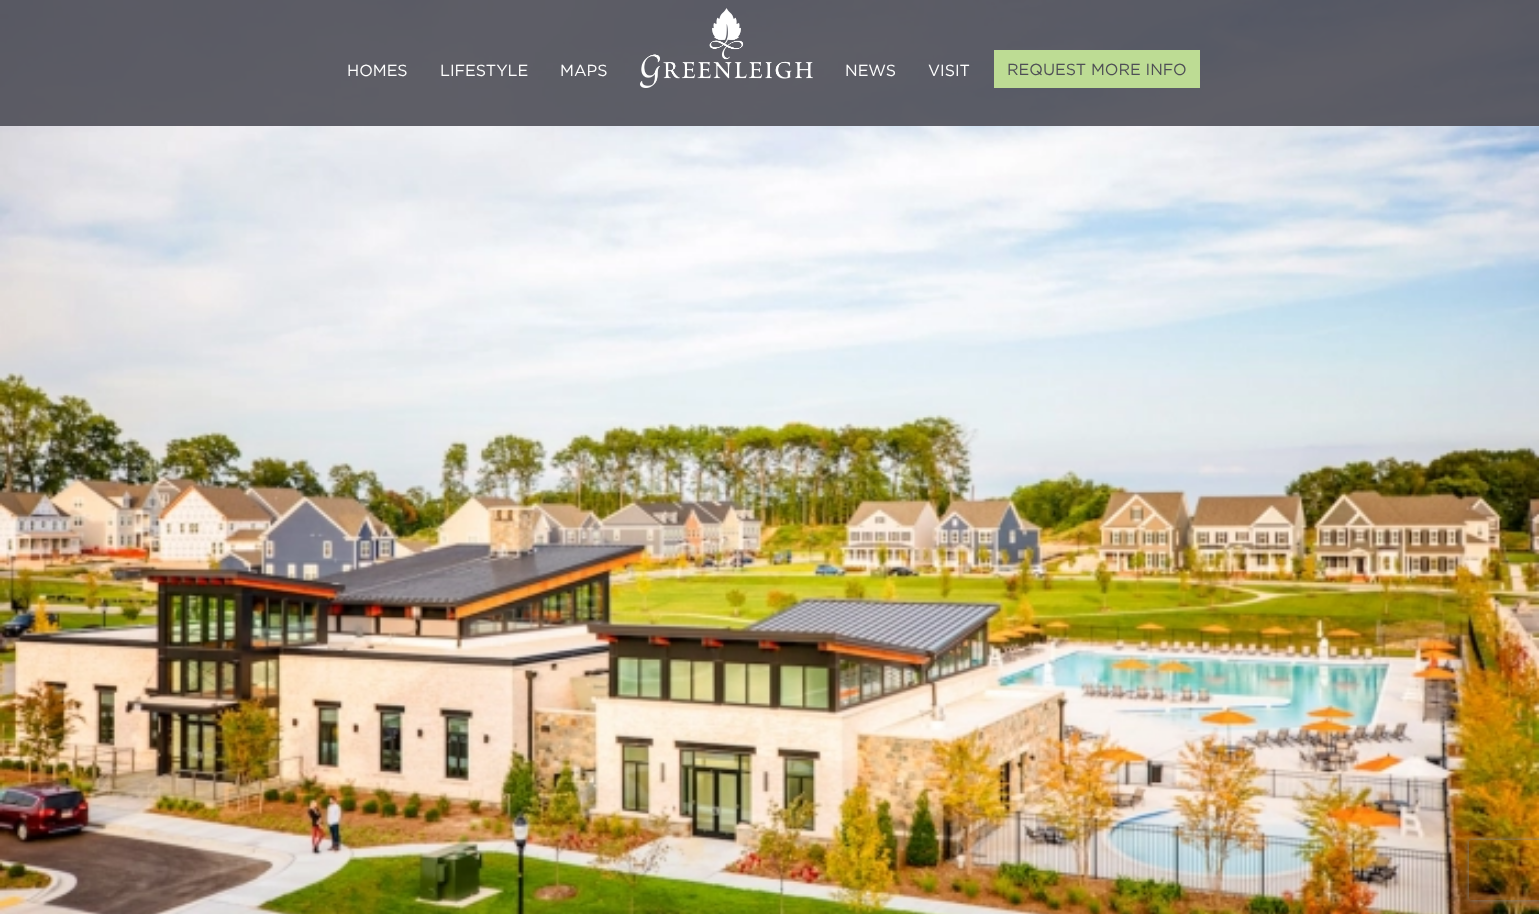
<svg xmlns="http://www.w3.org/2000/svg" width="1539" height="914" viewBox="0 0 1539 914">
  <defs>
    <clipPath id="clip1"><path d="M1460 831H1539V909H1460ZM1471 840H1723C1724 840 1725 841 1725 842V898C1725 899 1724 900 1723 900H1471C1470 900 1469 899 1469 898V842C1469 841 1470 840 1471 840Z" clip-rule="evenodd"/></clipPath>
  </defs>
  <rect width="100%" height="100%" fill="rgb(255,255,255)"/>
  <image x="0" y="0" width="1539" height="914" href="pic1.png"/>
  <rect x="0" y="0" width="1539" height="126" fill="rgba(78,78,86,0.9)"/>
  <g font-family="Gotham" font-size="16" fill="rgb(255,255,255)">
    <text x="347" y="76">HOMES</text>
    <text x="440" y="76">LIFESTYLE</text>
    <text x="560" y="76">MAPS</text>
  </g>
  <image x="640" y="8" width="173" height="80" href="pic2.png"/>
  <g font-family="Gotham" font-size="16" fill="rgb(255,255,255)">
    <text x="845" y="76">NEWS</text>
    <text x="928" y="76">VISIT</text>
  </g>
  <rect x="994" y="50" width="206" height="38" fill="rgb(189,220,148)"/>
  <text x="1007" y="75" font-family="Gotham" font-size="16" fill="rgb(78,78,86)">REQUEST MORE INFO</text>
  <g clip-path="url(#clip1)">
    <rect x="1469" y="840" width="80" height="60" rx="2" fill="rgb(128,128,128)" filter="blur(2.5px)"/>
  </g>
</svg>
